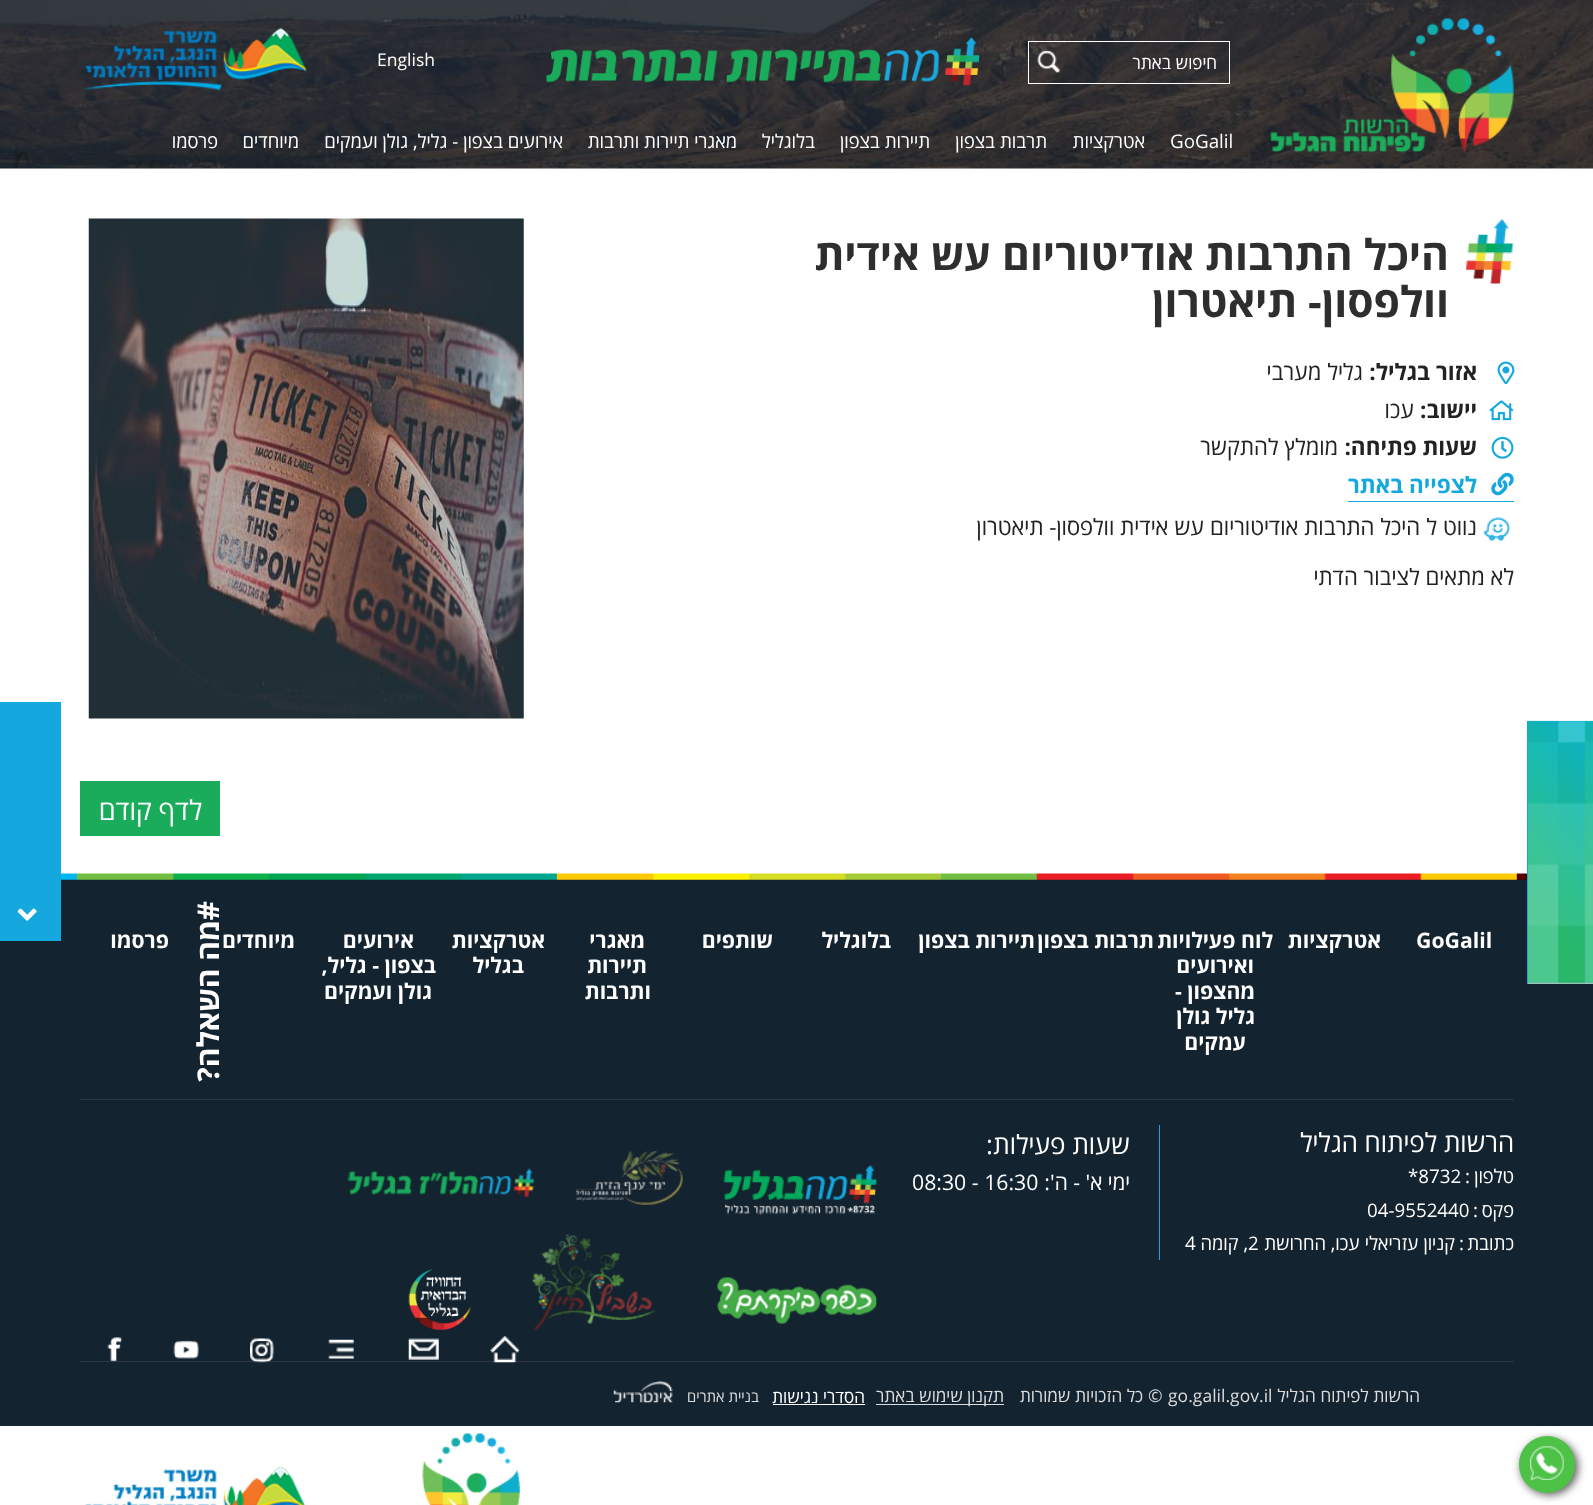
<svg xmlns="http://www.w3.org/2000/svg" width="1593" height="1505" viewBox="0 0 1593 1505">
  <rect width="100%" height="100%" fill="rgb(255,255,255)"/>
  <image x="0" y="0" width="1593" height="169" href="pic1.png"/>
  <image x="1270" y="18" width="244" height="135" href="pic2.png"/>
  <rect x="1028.5" y="41.5" width="201" height="42" fill="none" stroke="rgb(255,255,255)"/>
  <text x="1217" y="69" font-family="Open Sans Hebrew" font-size="17.5" direction="rtl" fill="rgb(255,255,255)">חיפוש באתר</text>
  <image x="1037" y="50" width="24" height="23" href="pic3.png"/>
  <image x="546" y="37" width="434" height="49" href="pic4.png"/>
  <text x="377" y="66" font-family="Open Sans Hebrew" font-size="17.5" fill="rgb(255,255,255)">English</text>
  <image x="82" y="28" width="225" height="62" href="pic5.png"/>
  <text x="1170" y="148" font-family="Open Sans Hebrew" font-size="18.75" fill="rgb(255,255,255)">GoGalil</text>
  <g font-family="Open Sans Hebrew" font-size="18.75" direction="rtl" fill="rgb(255,255,255)">
    <text x="1145" y="148">אטרקציות</text>
    <text x="1047" y="148">תרבות בצפון</text>
    <text x="930" y="148">תיירות בצפון</text>
    <text x="815" y="148">בלוגליל</text>
    <text x="737" y="148">מאגרי תיירות ותרבות</text>
    <text x="563" y="148">אירועים בצפון - גליל, גולן ועמקים</text>
    <text x="299" y="148">מיוחדים</text>
    <text x="218" y="148">פרסמו</text>
  </g>
  <image x="1466" y="218" width="48" height="66" href="pic6.png"/>
  <g font-family="Open Sans Hebrew" font-size="42.5" font-weight="bold" direction="rtl" fill="rgb(46,46,46)">
    <text>
      <tspan x="1449" y="270">היכל התרבות אודיטוריום עש אידית</tspan>
      <tspan x="1449" y="317">וולפסון- תיאטרון</tspan>
    </text>
  </g>
  <image x="1497" y="361" width="18" height="23" href="pic7.png"/>
  <text x="1477" y="380" font-family="Open Sans Hebrew" font-size="22.5" font-weight="bold" direction="rtl" fill="rgb(34,34,34)">אזור בגליל:</text>
  <text x="1363" y="380" font-family="Open Sans Hebrew" font-size="22.5" direction="rtl" fill="rgb(34,34,34)">גליל מערבי</text>
  <image x="1489" y="400" width="25" height="21" href="pic8.png"/>
  <text x="1477" y="418" font-family="Open Sans Hebrew" font-size="22.5" font-weight="bold" direction="rtl" fill="rgb(34,34,34)">יישוב:</text>
  <text x="1414" y="418" font-family="Open Sans Hebrew" font-size="22.5" direction="rtl" fill="rgb(34,34,34)">עכו</text>
  <image x="1491" y="436" width="23" height="23" href="pic9.png"/>
  <text x="1477" y="455" font-family="Open Sans Hebrew" font-size="22.5" font-weight="bold" direction="rtl" fill="rgb(34,34,34)">שעות פתיחה:</text>
  <text x="1338" y="455" font-family="Open Sans Hebrew" font-size="22.5" direction="rtl" fill="rgb(34,34,34)">מומלץ להתקשר</text>
  <rect x="1348" y="501" width="166" height="1" fill="rgb(20,168,222)"/>
  <image x="1491" y="472" width="23" height="24" href="pic10.png"/>
  <text x="1477" y="493" font-family="Open Sans Hebrew" font-size="22.5" font-weight="bold" direction="rtl" fill="rgb(20,168,222)">לצפייה באתר</text>
  <image x="1483" y="517" width="28" height="25" href="pic11.png"/>
  <g font-family="Open Sans Hebrew" font-size="22.5" direction="rtl" fill="rgb(34,34,34)">
    <text x="1477" y="535">נווט ל</text>
    <text x="1420" y="535">היכל התרבות אודיטוריום עש אידית וולפסון- תיאטרון</text>
    <text x="1514" y="585">לא מתאים לציבור הדתי</text>
  </g>
  <image x="88" y="218" width="436" height="501" href="pic12.png"/>
  <rect x="80" y="781" width="140" height="55" fill="rgb(26,172,91)"/>
  <text x="202" y="820" font-family="Open Sans Hebrew" font-size="27.5" direction="rtl" fill="rgb(255,255,255)">לדף קודם</text>
  <rect x="0" y="879" width="1593" height="547" fill="rgb(19,35,47)"/>
  <image x="61" y="873" width="1466" height="7" href="pic13.png"/>
  <text x="1416" y="948" font-family="Open Sans Hebrew" font-size="21.25" font-weight="bold" fill="rgb(255,255,255)">GoGalil</text>
  <g font-family="Open Sans Hebrew" font-size="21.25" font-weight="bold" direction="rtl" fill="rgb(255,255,255)">
    <text x="1381" y="948">אטרקציות</text>
    <text x="1273" y="948">לוח פעילויות</text>
    <text x="1254" y="973">ואירועים</text>
    <text>
      <tspan x="1255" y="999">מהצפון -</tspan>
      <tspan x="1255" y="1024">גליל גולן</tspan>
    </text>
    <text x="1246" y="1050">עמקים</text>
    <text x="1154" y="948">תרבות בצפון</text>
    <text x="1035" y="948">תיירות בצפון</text>
    <text x="891" y="948">בלוגליל</text>
    <text x="773" y="948">שותפים</text>
    <text x="645" y="948">מאגרי</text>
    <text x="647" y="973">תיירות</text>
    <text x="651" y="999">ותרבות</text>
    <text x="545" y="948">אטרקציות</text>
    <text x="524" y="973">בגליל</text>
    <text x="414" y="948">אירועים</text>
    <text x="436" y="973">בצפון - גליל,</text>
    <text x="432" y="999">גולן ועמקים</text>
    <text x="295" y="948">מיוחדים</text>
    <text x="169" y="948">פרסמו</text>
  </g>
  <rect x="80" y="1099" width="1434" height="1" fill="rgb(45,53,69)"/>
  <rect x="80" y="1361" width="1434" height="1" fill="rgb(45,53,69)"/>
  <rect x="1159" y="1125" width="1" height="135" fill="rgb(20,168,222)"/>
  <text x="1514" y="1152" font-family="Open Sans Hebrew" font-size="26.25" direction="rtl" fill="rgb(255,255,255)">הרשות לפיתוח הגליל</text>
  <text x="1514" y="1183" font-family="Open Sans Hebrew" font-size="18.75" direction="rtl" fill="rgb(255,255,255)">טלפון</text>
  <g font-family="Open Sans Hebrew" font-size="18.75" fill="rgb(255,255,255)">
    <text x="1465" y="1183">:</text>
    <text x="1408" y="1183">*8732</text>
  </g>
  <text x="1514" y="1217" font-family="Open Sans Hebrew" font-size="18.75" direction="rtl" fill="rgb(255,255,255)">פקס</text>
  <g font-family="Open Sans Hebrew" font-size="18.75" fill="rgb(255,255,255)">
    <text x="1473" y="1217">:</text>
    <text x="1367" y="1217">04-9552440</text>
  </g>
  <text x="1514" y="1250" font-family="Open Sans Hebrew" font-size="18.75" direction="rtl" fill="rgb(255,255,255)">כתובת</text>
  <text x="1459" y="1250" font-family="Open Sans Hebrew" font-size="18.75" fill="rgb(255,255,255)">:</text>
  <text x="1455" y="1250" font-family="Open Sans Hebrew" font-size="18.75" direction="rtl" fill="rgb(255,255,255)">קניון עזריאלי עכו, החרושת</text>
  <text x="1248" y="1250" font-family="Open Sans Hebrew" font-size="18.75" fill="rgb(255,255,255)">2</text>
  <text x="1248" y="1250" font-family="Open Sans Hebrew" font-size="18.75" direction="rtl" fill="rgb(255,255,255)">, קומה</text>
  <text x="1185" y="1250" font-family="Open Sans Hebrew" font-size="18.75" fill="rgb(255,255,255)">4</text>
  <text x="1130" y="1154" font-family="Open Sans Hebrew" font-size="26.25" direction="rtl" fill="rgb(255,255,255)">שעות פעילות:</text>
  <text x="1130" y="1190" font-family="Open Sans Hebrew" font-size="21.25" direction="rtl" fill="rgb(255,255,255)">ימי א' - ה':</text>
  <text x="912" y="1190" font-family="Open Sans Hebrew" font-size="21.25" fill="rgb(255,255,255)">08:30 - 16:30</text>
  <image x="723" y="1164" width="155" height="52" href="pic14.png"/>
  <image x="576" y="1151" width="107" height="54" href="pic15.png"/>
  <image x="347" y="1167" width="187" height="31" href="pic16.png"/>
  <image x="717" y="1277" width="160" height="47" href="pic17.png"/>
  <image x="532" y="1234" width="124" height="96" href="pic18.png"/>
  <image x="408" y="1269" width="63" height="61" href="pic19.png"/>
  <image x="490" y="1336" width="30" height="27" href="pic20.png"/>
  <image x="408" y="1338" width="31" height="22" href="pic21.png"/>
  <image x="328" y="1339" width="26" height="20" href="pic22.png"/>
  <image x="250" y="1338" width="24" height="25" href="pic23.png"/>
  <image x="173" y="1340" width="26" height="19" href="pic24.png"/>
  <image x="107" y="1337" width="15" height="25" href="pic25.png"/>
  <image x="422" y="1433" width="98" height="72" href="pic26.png"/>
  <image x="85" y="1467" width="221" height="38" href="pic27.png"/>
  <text x="1420" y="1402" font-family="Open Sans Hebrew" font-size="17.5" direction="rtl" fill="rgb(220,220,220)">הרשות לפיתוח הגליל</text>
  <g font-family="Open Sans Hebrew" font-size="17.5" fill="rgb(220,220,220)">
    <text x="1168" y="1402">go.galil.gov.il</text>
    <text x="1148" y="1402">©</text>
  </g>
  <text x="1143" y="1402" font-family="Open Sans Hebrew" font-size="17.5" direction="rtl" fill="rgb(220,220,220)">כל הזכויות שמורות</text>
  <rect x="876" y="1404" width="128" height="1" fill="rgb(220,220,220)"/>
  <text x="1004" y="1402" font-family="Open Sans Hebrew" font-size="17.5" direction="rtl" fill="rgb(220,220,220)">תקנון שימוש באתר</text>
  <text x="865" y="1403" font-family="Open Sans Hebrew" font-size="17.5" direction="rtl" fill="rgb(255,255,255)">הסדרי נגישות</text>
  <rect x="773" y="1404" width="92" height="1" fill="rgb(255,255,255)"/>
  <text x="759" y="1402" font-family="Open Sans Hebrew" font-size="15" direction="rtl" fill="rgb(220,220,220)">בניית אתרים</text>
  <image x="613" y="1381" width="60" height="22" href="pic28.png"/>
  <rect x="1527" y="721" width="66" height="263" fill="rgb(20,168,222)"/>
  <image x="1528" y="720" width="65" height="264" href="pic29.png"/>
  <text x="1798" y="965" transform="rotate(-90 1798 965)" font-family="Open Sans Hebrew" font-size="30" font-weight="bold" direction="rtl" fill="rgb(255,255,255)">#הרשמו לניוזלטר</text>
  <rect x="0" y="702" width="61" height="239" fill="rgb(20,168,222)"/>
  <text x="219" y="901" transform="rotate(-90 219 901)" font-family="Open Sans Hebrew" font-size="30" font-weight="bold" direction="rtl" fill="rgb(255,255,255)">#מה השאלה?</text>
  <image x="17" y="908" width="20" height="13" href="pic30.png"/>
  <rect x="1521" y="1439" width="57" height="56" rx="28" fill="rgb(91,91,91)" filter="blur(4.5px)"/>
  <rect x="1519" y="1436" width="56" height="57" rx="28" fill="rgb(77,194,71)"/>
  <image x="1530" y="1446" width="34" height="34" href="pic31.png"/>
</svg>
